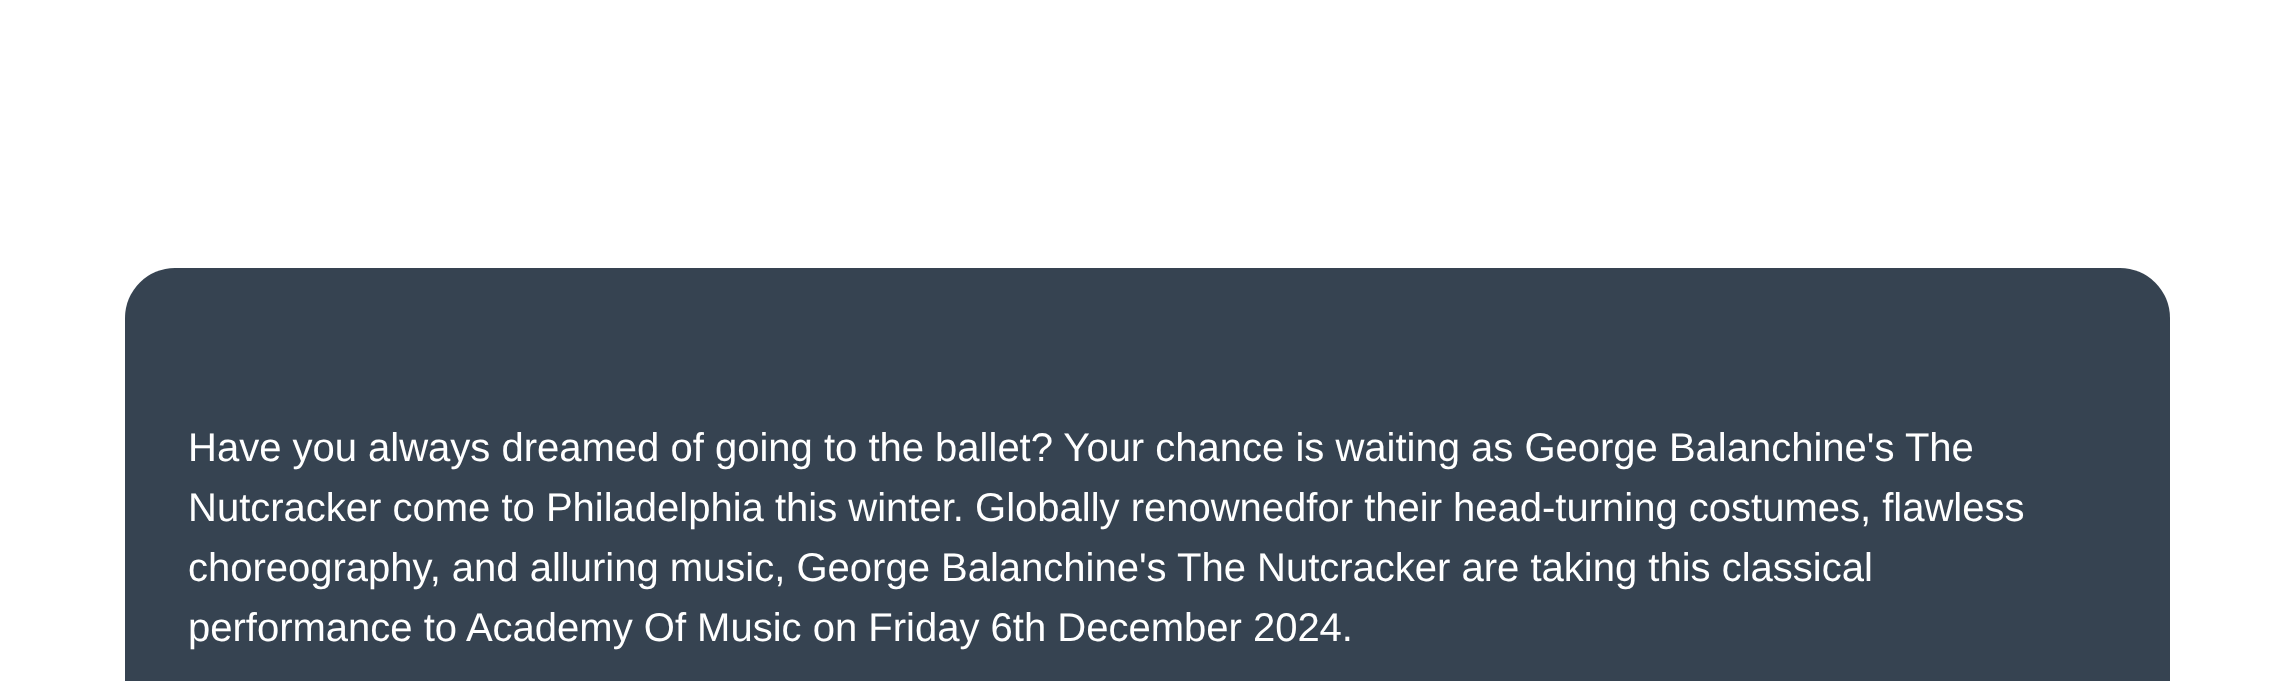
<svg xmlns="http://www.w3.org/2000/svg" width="2294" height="681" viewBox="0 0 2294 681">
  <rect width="100%" height="100%" fill="rgb(255,255,255)"/>
  <rect x="125" y="268" width="2045" height="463" rx="50" fill="rgb(54,67,81)"/>
  <g font-family="Liberation Sans" font-size="40" fill="rgb(255,255,255)">
    <text>
      <tspan x="188" y="461">Have you always dreamed of going to the ballet? Your chance is waiting as George Balanchine's The</tspan>
      <tspan x="188" y="521">Nutcracker come to Philadelphia this winter. Globally renownedfor their head-turning costumes, flawless</tspan>
      <tspan x="188" y="581">choreography, and alluring music, George Balanchine's The Nutcracker are taking this classical</tspan>
      <tspan x="188" y="641">performance to Academy Of Music on Friday 6th December 2024.</tspan>
    </text>
  </g>
</svg>
